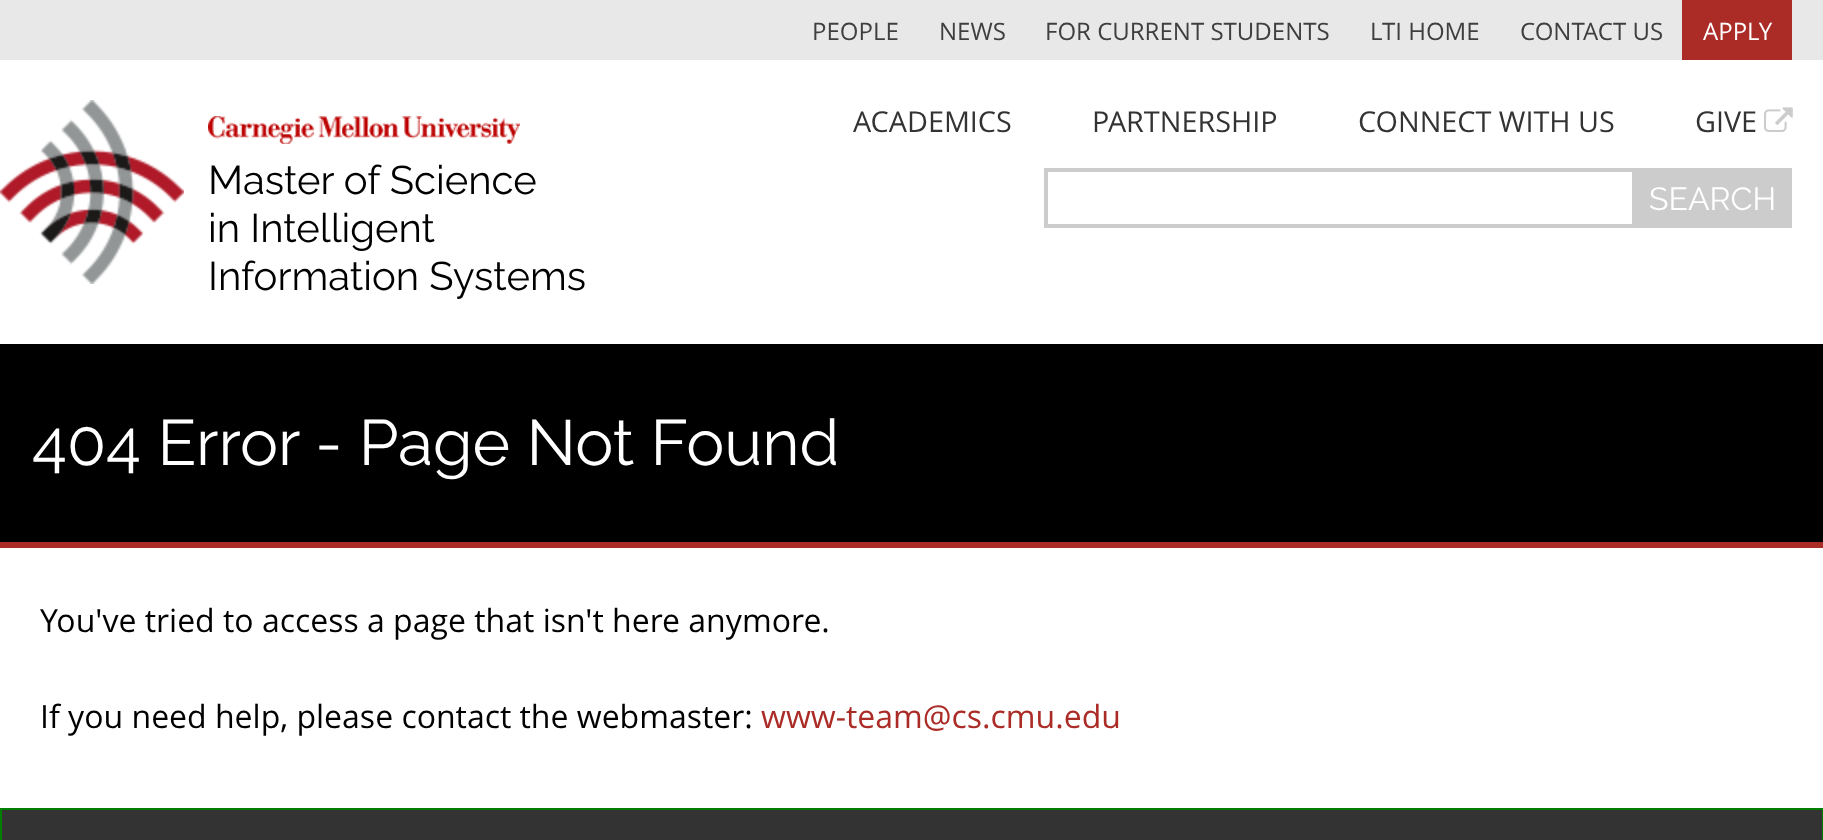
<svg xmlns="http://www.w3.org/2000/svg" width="1823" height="840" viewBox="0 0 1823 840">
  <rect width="100%" height="100%" fill="rgb(255,255,255)"/>
  <rect x="0" y="0" width="1823" height="60" fill="rgb(232,232,232)"/>
  <g font-family="Open Sans" font-size="24" fill="rgb(63,63,63)">
    <text x="812" y="40">PEOPLE</text>
    <text x="939" y="40">NEWS</text>
    <text x="1045" y="40">FOR CURRENT STUDENTS</text>
    <text x="1370" y="40">LTI HOME</text>
    <text x="1520" y="40">CONTACT US</text>
  </g>
  <rect x="1682" y="0" width="110" height="60" fill="rgb(171,44,39)"/>
  <text x="1703" y="40" font-family="Open Sans" font-size="24" fill="rgb(255,255,255)">APPLY</text>
  <image x="0" y="100" width="184" height="184" href="pic1.png"/>
  <image x="208" y="116" width="312" height="28" href="pic2.png"/>
  <g font-family="Raleway" font-size="40" font-weight="100" fill="rgb(0,0,0)">
    <text>
      <tspan x="208" y="194">Master of Science</tspan>
      <tspan x="208" y="242">in Intelligent</tspan>
      <tspan x="208" y="290">Information Systems</tspan>
    </text>
  </g>
  <g font-family="Open Sans" font-size="28.75" fill="rgb(51,51,51)">
    <text x="853" y="132">ACADEMICS</text>
    <text x="1092" y="132">PARTNERSHIP</text>
    <text x="1358" y="132">CONNECT WITH US</text>
    <text x="1695" y="132">GIVE</text>
  </g>
  <image x="1764" y="107" width="29" height="25" href="pic3.png"/>
  <rect x="1046" y="170" width="596" height="56" fill="none" stroke="rgb(204,204,204)" stroke-width="4"/>
  <rect x="1632" y="168" width="160" height="60" fill="rgb(204,204,204)"/>
  <text x="1649" y="210" font-family="Raleway" font-size="32" font-weight="100" fill="rgb(255,255,255)">SEARCH</text>
  <rect x="0" y="344" width="1823" height="198" fill="rgb(0,0,0)"/>
  <rect x="0" y="542" width="1823" height="6" fill="rgb(171,44,39)"/>
  <text x="32" y="465" font-family="Raleway" font-size="64" font-weight="100" fill="rgb(255,255,255)">404 Error - Page Not Found</text>
  <g font-family="Open Sans" font-size="32" fill="rgb(0,0,0)">
    <text x="40" y="632">You've tried to access a page that isn't here anymore.</text>
    <text x="40" y="728">If you need help, please contact the webmaster:</text>
  </g>
  <text x="761" y="728" font-family="Open Sans" font-size="32" fill="rgb(171,44,39)">www-team@cs.cmu.edu</text>
  <rect x="1" y="809" width="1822" height="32" fill="rgb(51,51,51)" stroke="rgb(0,128,0)" stroke-width="2"/>
</svg>
